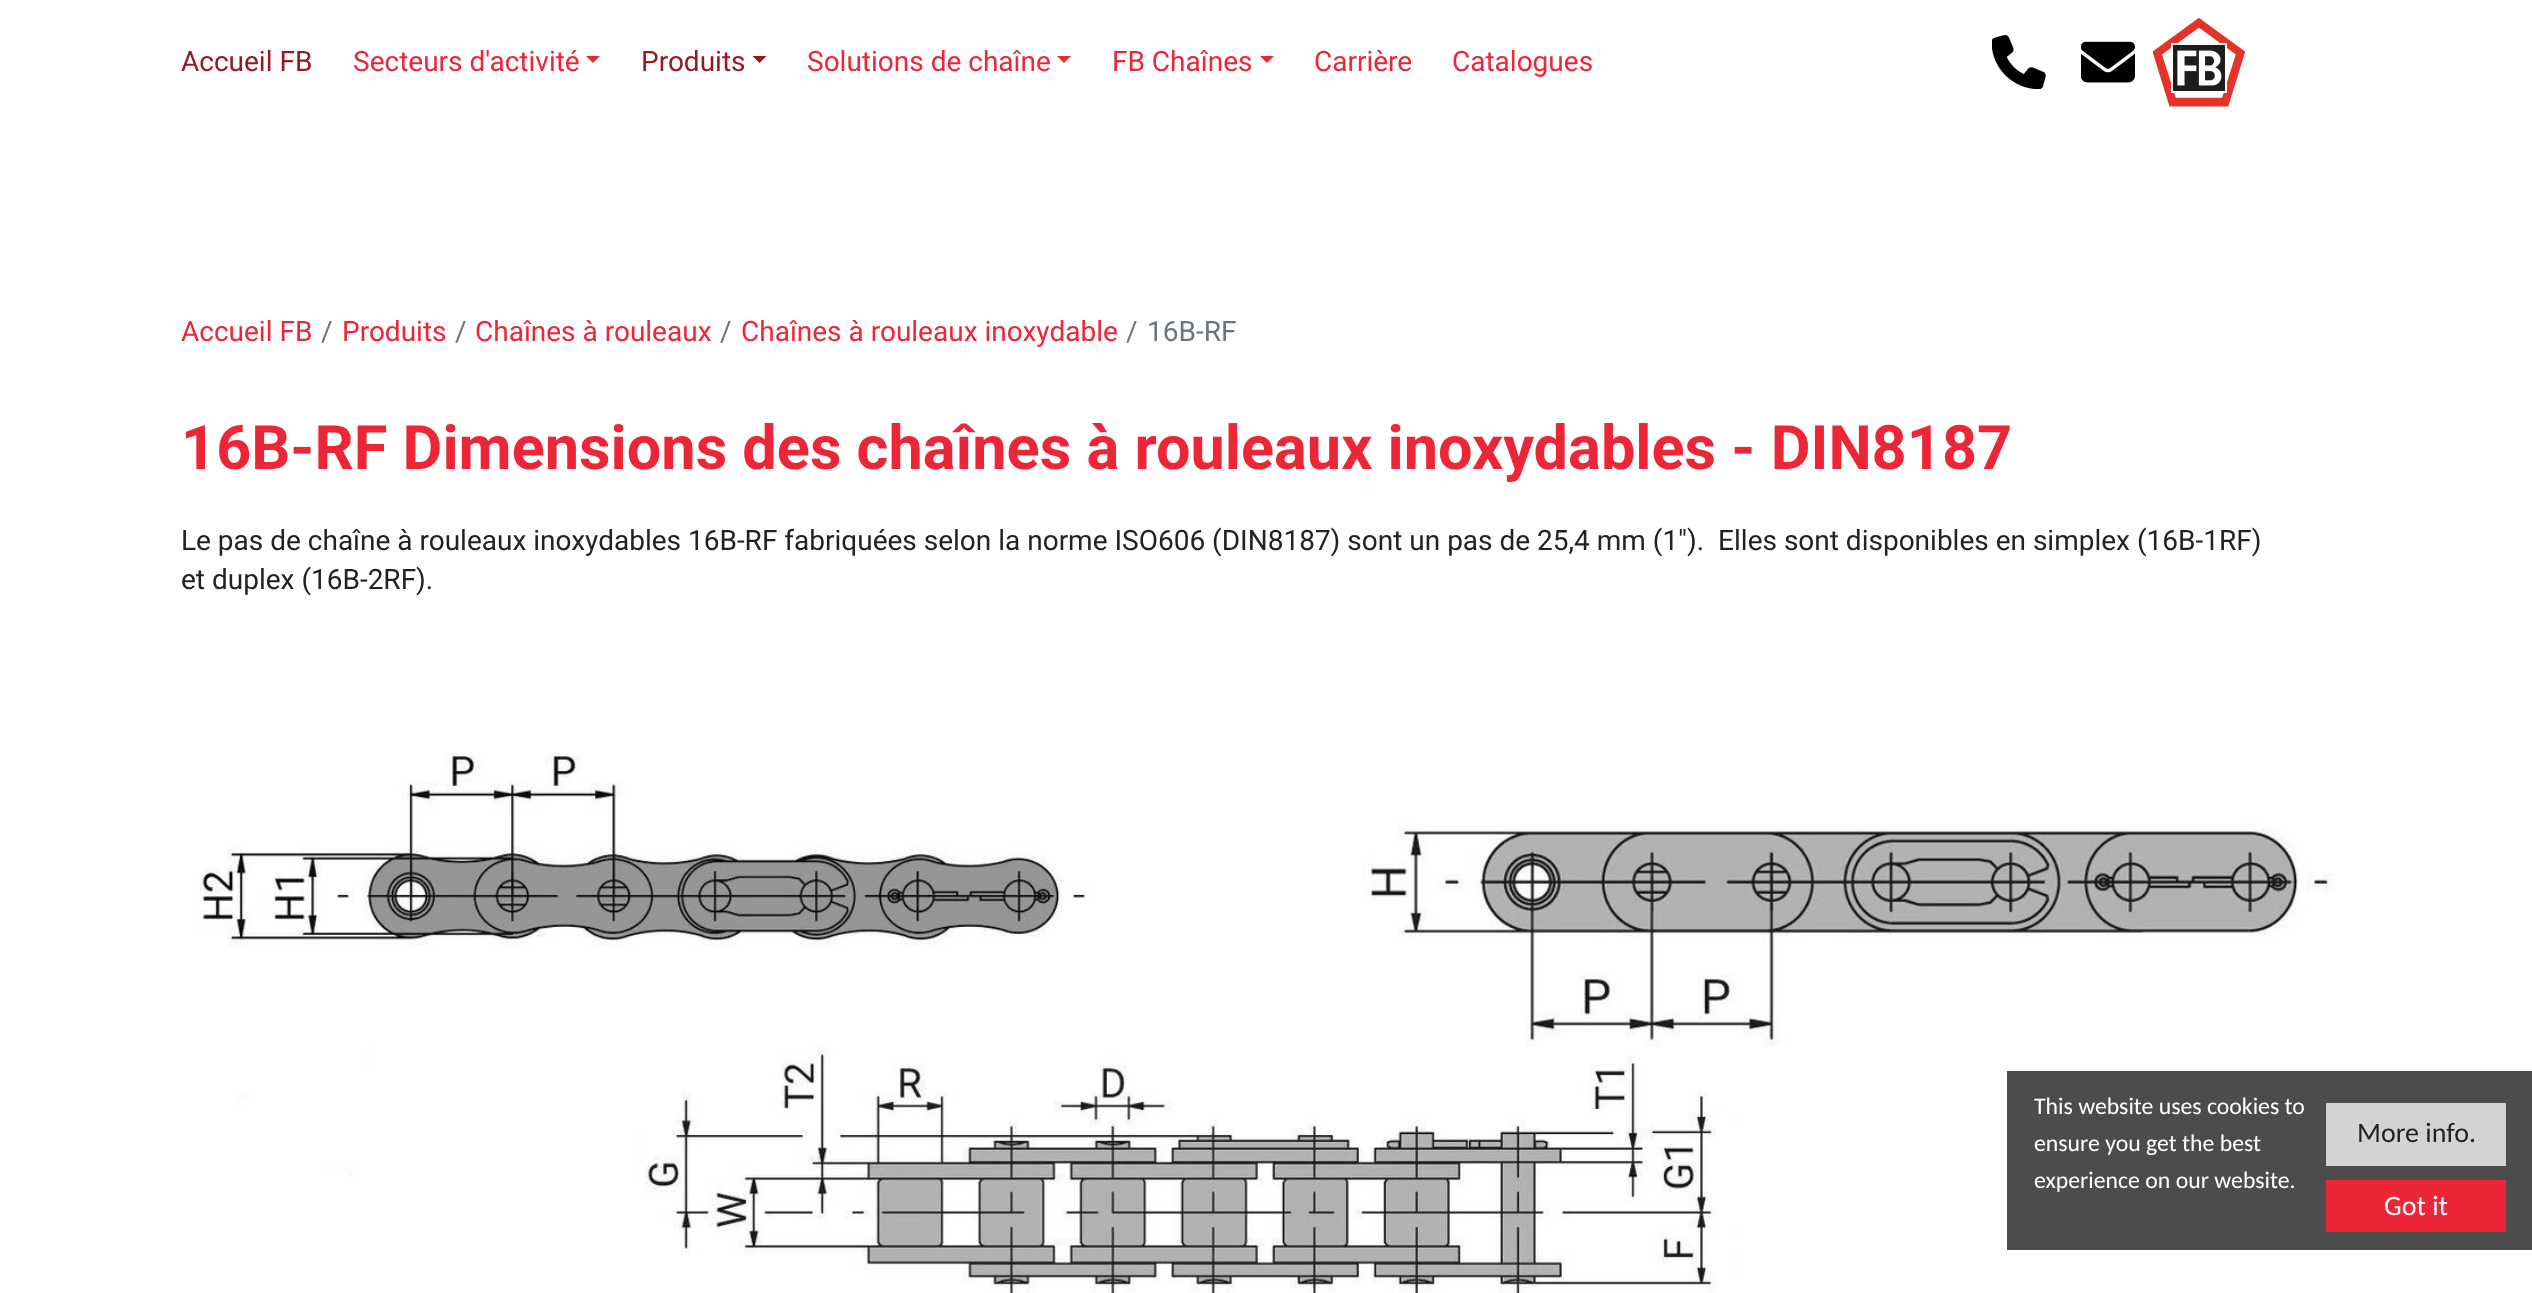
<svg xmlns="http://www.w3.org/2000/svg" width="2532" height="1293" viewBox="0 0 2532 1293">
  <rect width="100%" height="100%" fill="rgb(255,255,255)"/>
  <text x="181" y="71" font-family="Roboto" font-size="28" fill="rgb(151,25,35)">Accueil FB</text>
  <text x="353" y="71" font-family="Roboto" font-size="28" fill="rgb(236,38,55)">Secteurs d'activité</text>
  <path d="M586 56H600L593 63Z" fill="rgb(236,38,55)"/>
  <text x="641" y="71" font-family="Roboto" font-size="28" fill="rgb(151,25,35)">Produits</text>
  <path d="M752.5 56H766.5L759.5 63Z" fill="rgb(151,25,35)"/>
  <text x="807" y="71" font-family="Roboto" font-size="28" fill="rgb(236,38,55)">Solutions de chaîne</text>
  <path d="M1057 56H1071L1064 63Z" fill="rgb(236,38,55)"/>
  <text x="1112" y="71" font-family="Roboto" font-size="28" fill="rgb(236,38,55)">FB Chaînes</text>
  <path d="M1260 56H1274L1267 63Z" fill="rgb(236,38,55)"/>
  <g font-family="Roboto" font-size="28" fill="rgb(236,38,55)">
    <text x="1314" y="71">Carrière</text>
    <text x="1452" y="71">Catalogues</text>
  </g>
  <image x="1992" y="35" width="54" height="54" href="pic1.png"/>
  <image x="2081" y="41" width="54" height="42" href="pic2.png"/>
  <image x="2153" y="18" width="92" height="89" href="pic3.png"/>
  <text x="181" y="341" font-family="Roboto" font-size="28" fill="rgb(236,38,55)">Accueil FB</text>
  <text x="321" y="341" font-family="Roboto" font-size="28" fill="rgb(108,117,125)">/</text>
  <text x="342" y="341" font-family="Roboto" font-size="28" fill="rgb(236,38,55)">Produits</text>
  <text x="455" y="341" font-family="Roboto" font-size="28" fill="rgb(108,117,125)">/</text>
  <text x="475" y="341" font-family="Roboto" font-size="28" fill="rgb(236,38,55)">Chaînes à rouleaux</text>
  <text x="720" y="341" font-family="Roboto" font-size="28" fill="rgb(108,117,125)">/</text>
  <text x="741" y="341" font-family="Roboto" font-size="28" fill="rgb(236,38,55)">Chaînes à rouleaux inoxydable</text>
  <g font-family="Roboto" font-size="28" fill="rgb(108,117,125)">
    <text x="1126" y="341">/</text>
    <text x="1147" y="341">16B-RF</text>
  </g>
  <text x="181" y="469" font-family="Roboto" font-size="61.25" font-weight="bold" fill="rgb(236,38,55)">16B-RF Dimensions des chaînes à rouleaux inoxydables - DIN8187</text>
  <g font-family="Roboto" font-size="28" fill="rgb(34,34,34)">
    <text xml:space="preserve"><tspan x="181" y="550">Le pas de chaîne à rouleaux inoxydables 16B-RF fabriquées selon la norme ISO606 (DIN8187) sont un pas de 25,4 mm (1").  Elles sont disponibles en simplex (16B-1RF)</tspan><tspan x="181" y="589">et duplex (16B-2RF).</tspan></text>
  </g>
  <image x="199" y="753" width="2135" height="540" href="pic4.png"/>
  <rect x="2007" y="1071" width="525" height="179" fill="rgba(0,0,0,0.7)"/>
  <g font-family="Carlito" font-size="23.75" fill="rgb(255,255,255)">
    <text>
      <tspan x="2034" y="1114">This website uses cookies to</tspan>
      <tspan x="2034" y="1151">ensure you get the best</tspan>
      <tspan x="2034" y="1188">experience on our website.</tspan>
    </text>
  </g>
  <rect x="2326" y="1103" width="180" height="63" fill="rgb(211,211,211)"/>
  <text x="2357" y="1142" font-family="Carlito" font-size="28" fill="rgb(34,34,34)">More info.</text>
  <rect x="2326" y="1180" width="180" height="52" fill="rgb(236,38,55)"/>
  <text x="2384" y="1215" font-family="Carlito" font-size="28" fill="rgb(255,255,255)">Got it</text>
</svg>
